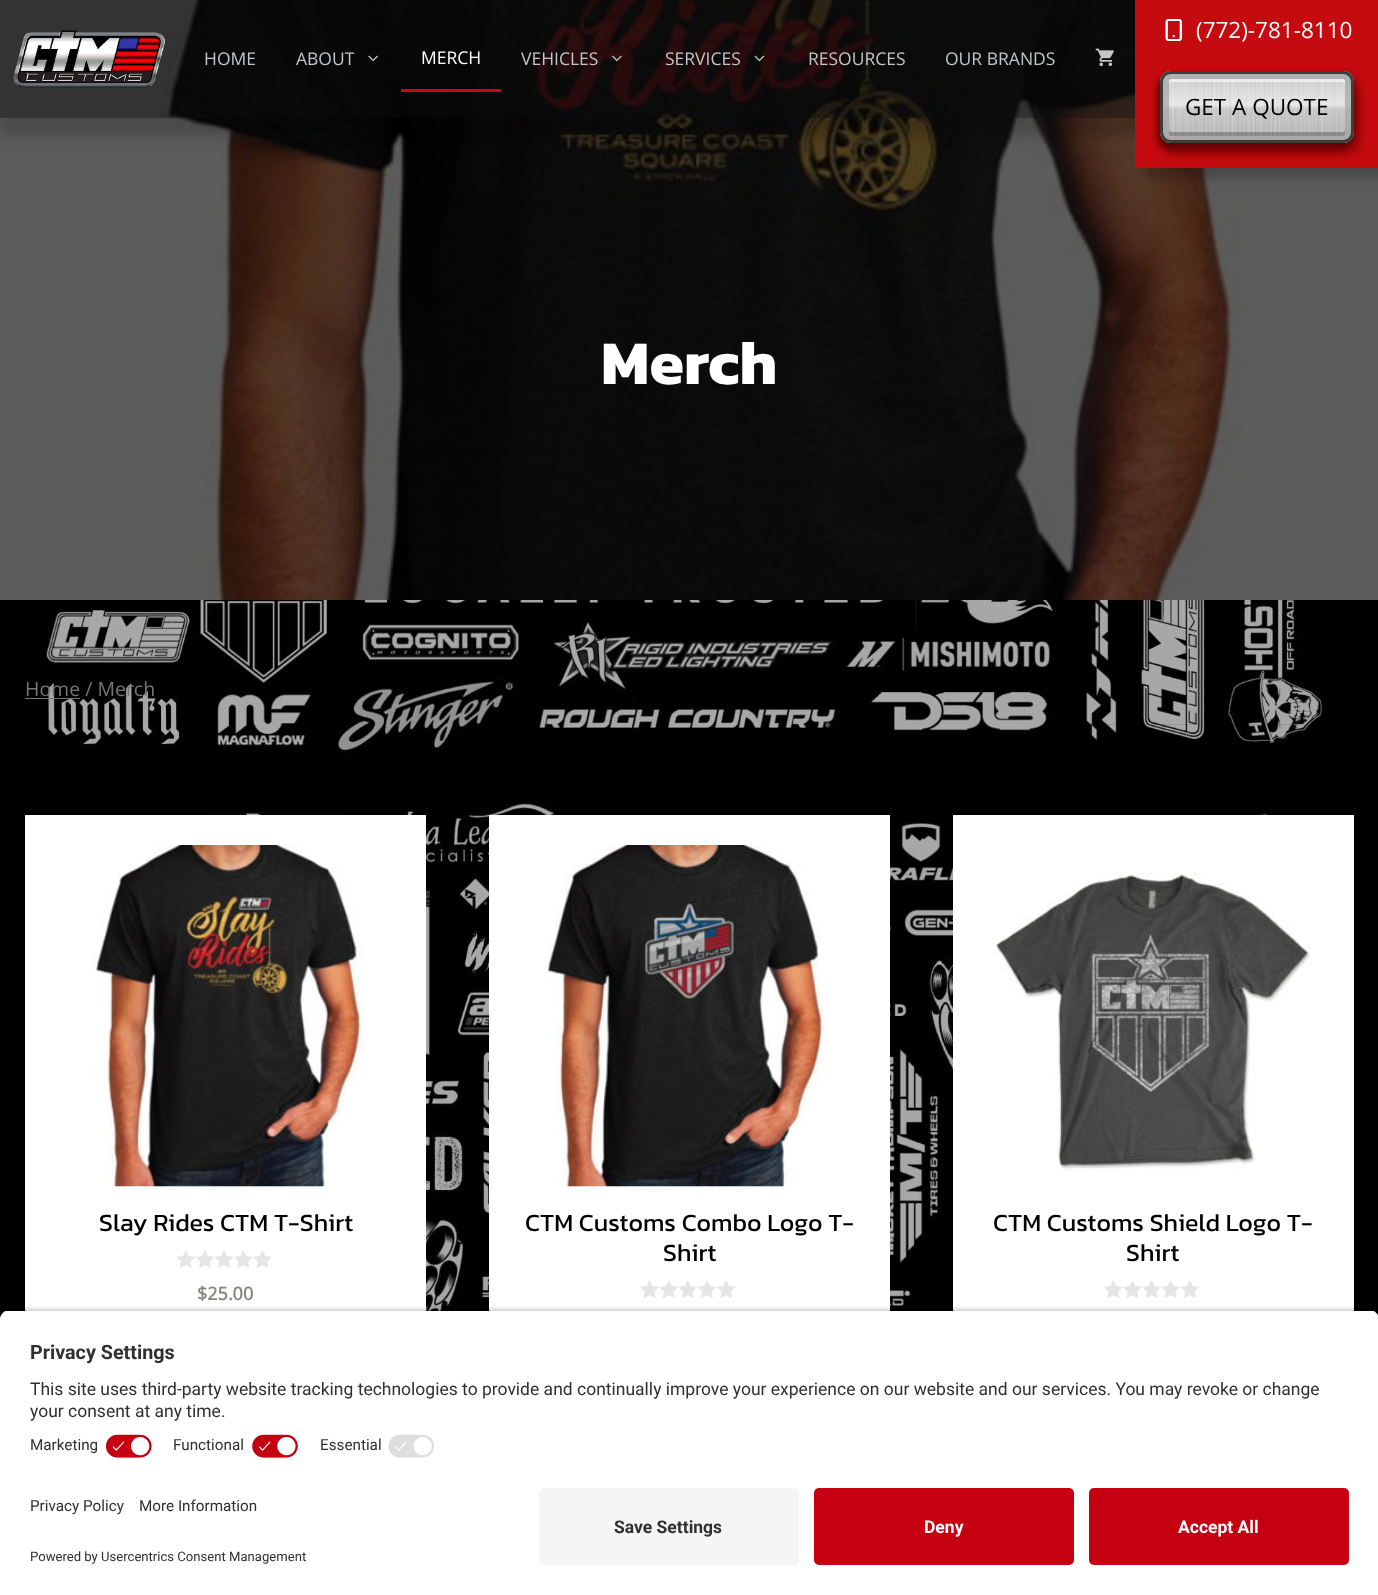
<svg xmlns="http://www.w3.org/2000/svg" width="1378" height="1595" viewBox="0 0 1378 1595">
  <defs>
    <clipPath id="clip1"><path d="M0 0H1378V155H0ZM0 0H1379V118H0Z" clip-rule="evenodd"/></clipPath>
    <linearGradient id="g1" gradientUnits="userSpaceOnUse" x1="1257" y1="71" x2="1257" y2="143"><stop offset="0" stop-color="rgb(199,199,199)"/><stop offset="0.47" stop-color="rgb(230,230,230)"/><stop offset="0.53" stop-color="rgb(199,199,199)"/><stop offset="1" stop-color="rgb(179,179,179)"/></linearGradient>
    <linearGradient id="g2" gradientUnits="userSpaceOnUse" x1="1160" y1="107" x2="1356" y2="107"><stop offset="0" stop-color="rgb(255,255,255)" stop-opacity="0"/><stop offset="0.01" stop-color="rgb(255,255,255)" stop-opacity="0"/><stop offset="0.02" stop-color="rgb(255,255,255)" stop-opacity="0.15"/><stop offset="0.02" stop-color="rgb(255,255,255)" stop-opacity="0"/><stop offset="0.03" stop-color="rgb(255,255,255)" stop-opacity="0"/><stop offset="0.04" stop-color="rgb(255,255,255)" stop-opacity="0.15"/><stop offset="0.04" stop-color="rgb(255,255,255)" stop-opacity="0"/><stop offset="0.06" stop-color="rgb(255,255,255)" stop-opacity="0"/><stop offset="0.07" stop-color="rgb(255,255,255)" stop-opacity="0.15"/><stop offset="0.07" stop-color="rgb(255,255,255)" stop-opacity="0"/><stop offset="0.08" stop-color="rgb(255,255,255)" stop-opacity="0"/><stop offset="0.09" stop-color="rgb(255,255,255)" stop-opacity="0.15"/><stop offset="0.09" stop-color="rgb(255,255,255)" stop-opacity="0"/><stop offset="0.1" stop-color="rgb(255,255,255)" stop-opacity="0"/><stop offset="0.11" stop-color="rgb(255,255,255)" stop-opacity="0.15"/><stop offset="0.11" stop-color="rgb(255,255,255)" stop-opacity="0"/><stop offset="0.12" stop-color="rgb(255,255,255)" stop-opacity="0"/><stop offset="0.13" stop-color="rgb(255,255,255)" stop-opacity="0.15"/><stop offset="0.13" stop-color="rgb(255,255,255)" stop-opacity="0"/><stop offset="0.14" stop-color="rgb(255,255,255)" stop-opacity="0"/><stop offset="0.15" stop-color="rgb(255,255,255)" stop-opacity="0.15"/><stop offset="0.15" stop-color="rgb(255,255,255)" stop-opacity="0"/><stop offset="0.16" stop-color="rgb(255,255,255)" stop-opacity="0"/><stop offset="0.17" stop-color="rgb(255,255,255)" stop-opacity="0.15"/><stop offset="0.17" stop-color="rgb(255,255,255)" stop-opacity="0"/><stop offset="0.19" stop-color="rgb(255,255,255)" stop-opacity="0"/><stop offset="0.2" stop-color="rgb(255,255,255)" stop-opacity="0.15"/><stop offset="0.2" stop-color="rgb(255,255,255)" stop-opacity="0"/><stop offset="0.21" stop-color="rgb(255,255,255)" stop-opacity="0"/><stop offset="0.22" stop-color="rgb(255,255,255)" stop-opacity="0.15"/><stop offset="0.22" stop-color="rgb(255,255,255)" stop-opacity="0"/><stop offset="0.23" stop-color="rgb(255,255,255)" stop-opacity="0"/><stop offset="0.24" stop-color="rgb(255,255,255)" stop-opacity="0.15"/><stop offset="0.24" stop-color="rgb(255,255,255)" stop-opacity="0"/><stop offset="0.25" stop-color="rgb(255,255,255)" stop-opacity="0"/><stop offset="0.26" stop-color="rgb(255,255,255)" stop-opacity="0.15"/><stop offset="0.26" stop-color="rgb(255,255,255)" stop-opacity="0"/><stop offset="0.27" stop-color="rgb(255,255,255)" stop-opacity="0"/><stop offset="0.28" stop-color="rgb(255,255,255)" stop-opacity="0.15"/><stop offset="0.28" stop-color="rgb(255,255,255)" stop-opacity="0"/><stop offset="0.29" stop-color="rgb(255,255,255)" stop-opacity="0"/><stop offset="0.3" stop-color="rgb(255,255,255)" stop-opacity="0.15"/><stop offset="0.3" stop-color="rgb(255,255,255)" stop-opacity="0"/><stop offset="0.32" stop-color="rgb(255,255,255)" stop-opacity="0"/><stop offset="0.33" stop-color="rgb(255,255,255)" stop-opacity="0.15"/><stop offset="0.33" stop-color="rgb(255,255,255)" stop-opacity="0"/><stop offset="0.34" stop-color="rgb(255,255,255)" stop-opacity="0"/><stop offset="0.35" stop-color="rgb(255,255,255)" stop-opacity="0.15"/><stop offset="0.35" stop-color="rgb(255,255,255)" stop-opacity="0"/><stop offset="0.36" stop-color="rgb(255,255,255)" stop-opacity="0"/><stop offset="0.37" stop-color="rgb(255,255,255)" stop-opacity="0.15"/><stop offset="0.37" stop-color="rgb(255,255,255)" stop-opacity="0"/><stop offset="0.38" stop-color="rgb(255,255,255)" stop-opacity="0"/><stop offset="0.39" stop-color="rgb(255,255,255)" stop-opacity="0.15"/><stop offset="0.39" stop-color="rgb(255,255,255)" stop-opacity="0"/><stop offset="0.4" stop-color="rgb(255,255,255)" stop-opacity="0"/><stop offset="0.41" stop-color="rgb(255,255,255)" stop-opacity="0.15"/><stop offset="0.41" stop-color="rgb(255,255,255)" stop-opacity="0"/><stop offset="0.42" stop-color="rgb(255,255,255)" stop-opacity="0"/><stop offset="0.43" stop-color="rgb(255,255,255)" stop-opacity="0.15"/><stop offset="0.43" stop-color="rgb(255,255,255)" stop-opacity="0"/><stop offset="0.45" stop-color="rgb(255,255,255)" stop-opacity="0"/><stop offset="0.46" stop-color="rgb(255,255,255)" stop-opacity="0.15"/><stop offset="0.46" stop-color="rgb(255,255,255)" stop-opacity="0"/><stop offset="0.47" stop-color="rgb(255,255,255)" stop-opacity="0"/><stop offset="0.48" stop-color="rgb(255,255,255)" stop-opacity="0.15"/><stop offset="0.48" stop-color="rgb(255,255,255)" stop-opacity="0"/><stop offset="0.49" stop-color="rgb(255,255,255)" stop-opacity="0"/><stop offset="0.5" stop-color="rgb(255,255,255)" stop-opacity="0.15"/><stop offset="0.5" stop-color="rgb(255,255,255)" stop-opacity="0"/><stop offset="0.51" stop-color="rgb(255,255,255)" stop-opacity="0"/><stop offset="0.52" stop-color="rgb(255,255,255)" stop-opacity="0.15"/><stop offset="0.52" stop-color="rgb(255,255,255)" stop-opacity="0"/><stop offset="0.53" stop-color="rgb(255,255,255)" stop-opacity="0"/><stop offset="0.54" stop-color="rgb(255,255,255)" stop-opacity="0.15"/><stop offset="0.54" stop-color="rgb(255,255,255)" stop-opacity="0"/><stop offset="0.56" stop-color="rgb(255,255,255)" stop-opacity="0"/><stop offset="0.57" stop-color="rgb(255,255,255)" stop-opacity="0.15"/><stop offset="0.57" stop-color="rgb(255,255,255)" stop-opacity="0"/><stop offset="0.58" stop-color="rgb(255,255,255)" stop-opacity="0"/><stop offset="0.59" stop-color="rgb(255,255,255)" stop-opacity="0.15"/><stop offset="0.59" stop-color="rgb(255,255,255)" stop-opacity="0"/><stop offset="0.6" stop-color="rgb(255,255,255)" stop-opacity="0"/><stop offset="0.61" stop-color="rgb(255,255,255)" stop-opacity="0.15"/><stop offset="0.61" stop-color="rgb(255,255,255)" stop-opacity="0"/><stop offset="0.62" stop-color="rgb(255,255,255)" stop-opacity="0"/><stop offset="0.63" stop-color="rgb(255,255,255)" stop-opacity="0.15"/><stop offset="0.63" stop-color="rgb(255,255,255)" stop-opacity="0"/><stop offset="0.64" stop-color="rgb(255,255,255)" stop-opacity="0"/><stop offset="0.65" stop-color="rgb(255,255,255)" stop-opacity="0.15"/><stop offset="0.65" stop-color="rgb(255,255,255)" stop-opacity="0"/><stop offset="0.66" stop-color="rgb(255,255,255)" stop-opacity="0"/><stop offset="0.67" stop-color="rgb(255,255,255)" stop-opacity="0.15"/><stop offset="0.67" stop-color="rgb(255,255,255)" stop-opacity="0"/><stop offset="0.69" stop-color="rgb(255,255,255)" stop-opacity="0"/><stop offset="0.7" stop-color="rgb(255,255,255)" stop-opacity="0.15"/><stop offset="0.7" stop-color="rgb(255,255,255)" stop-opacity="0"/><stop offset="0.71" stop-color="rgb(255,255,255)" stop-opacity="0"/><stop offset="0.72" stop-color="rgb(255,255,255)" stop-opacity="0.15"/><stop offset="0.72" stop-color="rgb(255,255,255)" stop-opacity="0"/><stop offset="0.73" stop-color="rgb(255,255,255)" stop-opacity="0"/><stop offset="0.74" stop-color="rgb(255,255,255)" stop-opacity="0.15"/><stop offset="0.74" stop-color="rgb(255,255,255)" stop-opacity="0"/><stop offset="0.75" stop-color="rgb(255,255,255)" stop-opacity="0"/><stop offset="0.76" stop-color="rgb(255,255,255)" stop-opacity="0.15"/><stop offset="0.76" stop-color="rgb(255,255,255)" stop-opacity="0"/><stop offset="0.77" stop-color="rgb(255,255,255)" stop-opacity="0"/><stop offset="0.78" stop-color="rgb(255,255,255)" stop-opacity="0.15"/><stop offset="0.78" stop-color="rgb(255,255,255)" stop-opacity="0"/><stop offset="0.79" stop-color="rgb(255,255,255)" stop-opacity="0"/><stop offset="0.8" stop-color="rgb(255,255,255)" stop-opacity="0.15"/><stop offset="0.8" stop-color="rgb(255,255,255)" stop-opacity="0"/><stop offset="0.82" stop-color="rgb(255,255,255)" stop-opacity="0"/><stop offset="0.83" stop-color="rgb(255,255,255)" stop-opacity="0.15"/><stop offset="0.83" stop-color="rgb(255,255,255)" stop-opacity="0"/><stop offset="0.84" stop-color="rgb(255,255,255)" stop-opacity="0"/><stop offset="0.85" stop-color="rgb(255,255,255)" stop-opacity="0.15"/><stop offset="0.85" stop-color="rgb(255,255,255)" stop-opacity="0"/><stop offset="0.86" stop-color="rgb(255,255,255)" stop-opacity="0"/><stop offset="0.87" stop-color="rgb(255,255,255)" stop-opacity="0.15"/><stop offset="0.87" stop-color="rgb(255,255,255)" stop-opacity="0"/><stop offset="0.88" stop-color="rgb(255,255,255)" stop-opacity="0"/><stop offset="0.89" stop-color="rgb(255,255,255)" stop-opacity="0.15"/><stop offset="0.89" stop-color="rgb(255,255,255)" stop-opacity="0"/><stop offset="0.9" stop-color="rgb(255,255,255)" stop-opacity="0"/><stop offset="0.91" stop-color="rgb(255,255,255)" stop-opacity="0.15"/><stop offset="0.91" stop-color="rgb(255,255,255)" stop-opacity="0"/><stop offset="0.92" stop-color="rgb(255,255,255)" stop-opacity="0"/><stop offset="0.93" stop-color="rgb(255,255,255)" stop-opacity="0.15"/><stop offset="0.93" stop-color="rgb(255,255,255)" stop-opacity="0"/><stop offset="0.95" stop-color="rgb(255,255,255)" stop-opacity="0"/><stop offset="0.96" stop-color="rgb(255,255,255)" stop-opacity="0.15"/><stop offset="0.96" stop-color="rgb(255,255,255)" stop-opacity="0"/><stop offset="0.97" stop-color="rgb(255,255,255)" stop-opacity="0"/><stop offset="0.98" stop-color="rgb(255,255,255)" stop-opacity="0.15"/><stop offset="0.98" stop-color="rgb(255,255,255)" stop-opacity="0"/><stop offset="0.99" stop-color="rgb(255,255,255)" stop-opacity="0"/><stop offset="1" stop-color="rgb(255,255,255)" stop-opacity="0.15"/></linearGradient>
    <linearGradient id="g3" gradientUnits="userSpaceOnUse" x1="1160" y1="107" x2="1357" y2="107"><stop offset="0" stop-color="rgb(255,255,255)" stop-opacity="0"/><stop offset="0.02" stop-color="rgb(255,255,255)" stop-opacity="0"/><stop offset="0.03" stop-color="rgb(255,255,255)" stop-opacity="0.1"/><stop offset="0.03" stop-color="rgb(255,255,255)" stop-opacity="0"/><stop offset="0.05" stop-color="rgb(255,255,255)" stop-opacity="0"/><stop offset="0.07" stop-color="rgb(255,255,255)" stop-opacity="0.1"/><stop offset="0.07" stop-color="rgb(255,255,255)" stop-opacity="0"/><stop offset="0.09" stop-color="rgb(255,255,255)" stop-opacity="0"/><stop offset="0.1" stop-color="rgb(255,255,255)" stop-opacity="0.1"/><stop offset="0.1" stop-color="rgb(255,255,255)" stop-opacity="0"/><stop offset="0.12" stop-color="rgb(255,255,255)" stop-opacity="0"/><stop offset="0.14" stop-color="rgb(255,255,255)" stop-opacity="0.1"/><stop offset="0.14" stop-color="rgb(255,255,255)" stop-opacity="0"/><stop offset="0.16" stop-color="rgb(255,255,255)" stop-opacity="0"/><stop offset="0.17" stop-color="rgb(255,255,255)" stop-opacity="0.1"/><stop offset="0.17" stop-color="rgb(255,255,255)" stop-opacity="0"/><stop offset="0.19" stop-color="rgb(255,255,255)" stop-opacity="0"/><stop offset="0.21" stop-color="rgb(255,255,255)" stop-opacity="0.1"/><stop offset="0.21" stop-color="rgb(255,255,255)" stop-opacity="0"/><stop offset="0.23" stop-color="rgb(255,255,255)" stop-opacity="0"/><stop offset="0.24" stop-color="rgb(255,255,255)" stop-opacity="0.1"/><stop offset="0.24" stop-color="rgb(255,255,255)" stop-opacity="0"/><stop offset="0.26" stop-color="rgb(255,255,255)" stop-opacity="0"/><stop offset="0.28" stop-color="rgb(255,255,255)" stop-opacity="0.1"/><stop offset="0.28" stop-color="rgb(255,255,255)" stop-opacity="0"/><stop offset="0.3" stop-color="rgb(255,255,255)" stop-opacity="0"/><stop offset="0.31" stop-color="rgb(255,255,255)" stop-opacity="0.1"/><stop offset="0.31" stop-color="rgb(255,255,255)" stop-opacity="0"/><stop offset="0.33" stop-color="rgb(255,255,255)" stop-opacity="0"/><stop offset="0.34" stop-color="rgb(255,255,255)" stop-opacity="0.1"/><stop offset="0.34" stop-color="rgb(255,255,255)" stop-opacity="0"/><stop offset="0.36" stop-color="rgb(255,255,255)" stop-opacity="0"/><stop offset="0.38" stop-color="rgb(255,255,255)" stop-opacity="0.1"/><stop offset="0.38" stop-color="rgb(255,255,255)" stop-opacity="0"/><stop offset="0.4" stop-color="rgb(255,255,255)" stop-opacity="0"/><stop offset="0.41" stop-color="rgb(255,255,255)" stop-opacity="0.1"/><stop offset="0.41" stop-color="rgb(255,255,255)" stop-opacity="0"/><stop offset="0.43" stop-color="rgb(255,255,255)" stop-opacity="0"/><stop offset="0.45" stop-color="rgb(255,255,255)" stop-opacity="0.1"/><stop offset="0.45" stop-color="rgb(255,255,255)" stop-opacity="0"/><stop offset="0.47" stop-color="rgb(255,255,255)" stop-opacity="0"/><stop offset="0.48" stop-color="rgb(255,255,255)" stop-opacity="0.1"/><stop offset="0.48" stop-color="rgb(255,255,255)" stop-opacity="0"/><stop offset="0.5" stop-color="rgb(255,255,255)" stop-opacity="0"/><stop offset="0.52" stop-color="rgb(255,255,255)" stop-opacity="0.1"/><stop offset="0.52" stop-color="rgb(255,255,255)" stop-opacity="0"/><stop offset="0.54" stop-color="rgb(255,255,255)" stop-opacity="0"/><stop offset="0.55" stop-color="rgb(255,255,255)" stop-opacity="0.1"/><stop offset="0.55" stop-color="rgb(255,255,255)" stop-opacity="0"/><stop offset="0.57" stop-color="rgb(255,255,255)" stop-opacity="0"/><stop offset="0.59" stop-color="rgb(255,255,255)" stop-opacity="0.1"/><stop offset="0.59" stop-color="rgb(255,255,255)" stop-opacity="0"/><stop offset="0.61" stop-color="rgb(255,255,255)" stop-opacity="0"/><stop offset="0.62" stop-color="rgb(255,255,255)" stop-opacity="0.1"/><stop offset="0.62" stop-color="rgb(255,255,255)" stop-opacity="0"/><stop offset="0.64" stop-color="rgb(255,255,255)" stop-opacity="0"/><stop offset="0.66" stop-color="rgb(255,255,255)" stop-opacity="0.1"/><stop offset="0.66" stop-color="rgb(255,255,255)" stop-opacity="0"/><stop offset="0.67" stop-color="rgb(255,255,255)" stop-opacity="0"/><stop offset="0.69" stop-color="rgb(255,255,255)" stop-opacity="0.1"/><stop offset="0.69" stop-color="rgb(255,255,255)" stop-opacity="0"/><stop offset="0.71" stop-color="rgb(255,255,255)" stop-opacity="0"/><stop offset="0.72" stop-color="rgb(255,255,255)" stop-opacity="0.1"/><stop offset="0.72" stop-color="rgb(255,255,255)" stop-opacity="0"/><stop offset="0.74" stop-color="rgb(255,255,255)" stop-opacity="0"/><stop offset="0.76" stop-color="rgb(255,255,255)" stop-opacity="0.1"/><stop offset="0.76" stop-color="rgb(255,255,255)" stop-opacity="0"/><stop offset="0.78" stop-color="rgb(255,255,255)" stop-opacity="0"/><stop offset="0.79" stop-color="rgb(255,255,255)" stop-opacity="0.1"/><stop offset="0.79" stop-color="rgb(255,255,255)" stop-opacity="0"/><stop offset="0.81" stop-color="rgb(255,255,255)" stop-opacity="0"/><stop offset="0.83" stop-color="rgb(255,255,255)" stop-opacity="0.1"/><stop offset="0.83" stop-color="rgb(255,255,255)" stop-opacity="0"/><stop offset="0.85" stop-color="rgb(255,255,255)" stop-opacity="0"/><stop offset="0.86" stop-color="rgb(255,255,255)" stop-opacity="0.1"/><stop offset="0.86" stop-color="rgb(255,255,255)" stop-opacity="0"/><stop offset="0.88" stop-color="rgb(255,255,255)" stop-opacity="0"/><stop offset="0.9" stop-color="rgb(255,255,255)" stop-opacity="0.1"/><stop offset="0.9" stop-color="rgb(255,255,255)" stop-opacity="0"/><stop offset="0.92" stop-color="rgb(255,255,255)" stop-opacity="0"/><stop offset="0.93" stop-color="rgb(255,255,255)" stop-opacity="0.1"/><stop offset="0.93" stop-color="rgb(255,255,255)" stop-opacity="0"/><stop offset="0.95" stop-color="rgb(255,255,255)" stop-opacity="0"/><stop offset="0.97" stop-color="rgb(255,255,255)" stop-opacity="0.1"/><stop offset="0.97" stop-color="rgb(255,255,255)" stop-opacity="0"/><stop offset="0.99" stop-color="rgb(255,255,255)" stop-opacity="0"/><stop offset="1" stop-color="rgb(255,255,255)" stop-opacity="0.1"/></linearGradient>
    <clipPath id="clip2"><path d="M10 1310H1369C1374.5 1310 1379 1314.5 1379 1320V1478H0V1320C0 1314.5 4.5 1310 10 1310Z"/></clipPath>
  </defs>
  <rect width="100%" height="100%" fill="rgb(255,255,255)"/>
  <image x="0" y="600" width="1378" height="720" href="pic1.png"/>
  <rect x="0" y="0" width="1378" height="600" fill="rgb(0,0,0)"/>
  <image x="0" y="0" width="1378" height="600" href="pic9.png"/>
  <g clip-path="url(#clip1)">
    <rect x="0" y="19" width="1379" height="117" fill="rgba(0,0,0,0.18)" filter="blur(6px)"/>
  </g>
  <rect x="0" y="0" width="1135" height="118" fill="rgba(10,10,10,0.5)"/>
  <image x="13" y="30" width="152" height="58" href="pic2.png"/>
  <g font-family="Open Sans" font-size="17.5" fill="rgb(195,198,200)">
    <text x="204" y="65">HOME</text>
    <text x="296" y="65">ABOUT</text>
  </g>
  <image x="368" y="55" width="10" height="7" href="pic3.png"/>
  <rect x="401" y="89" width="100" height="3" fill="rgb(197,11,17)"/>
  <text x="421" y="64" font-family="Open Sans" font-size="17.5" fill="rgb(255,255,255)">MERCH</text>
  <text x="521" y="65" font-family="Open Sans" font-size="17.5" fill="rgb(195,198,200)">VEHICLES</text>
  <image x="612" y="55" width="10" height="7" href="pic4.png"/>
  <text x="665" y="65" font-family="Open Sans" font-size="17.5" fill="rgb(195,198,200)">SERVICES</text>
  <image x="754" y="55" width="11" height="7" href="pic5.png"/>
  <g font-family="Open Sans" font-size="17.5" fill="rgb(195,198,200)">
    <text x="808" y="65">RESOURCES</text>
    <text x="945" y="65">OUR BRANDS</text>
  </g>
  <image x="1095" y="48" width="19" height="19" href="pic6.png"/>
  <rect x="1145" y="-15" width="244" height="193" fill="rgba(0,0,0,0.21)" filter="blur(5px)"/>
  <rect x="1135" y="0" width="243" height="168" fill="rgb(197,11,16)"/>
  <image x="1165" y="19" width="17" height="22" href="pic7.png"/>
  <text x="1196" y="38" font-family="Open Sans" font-size="22.5" fill="rgb(255,255,255)">(772)-781-8110</text>
  <rect x="1159" y="76" width="196" height="74" rx="13" fill="rgb(55,1,1)" filter="blur(4px)"/>
  <rect x="1166" y="84" width="194" height="71" rx="11" fill="rgba(139,4,4,0.5)" filter="blur(6px)"/>
  <rect x="1160" y="71" width="194" height="72" rx="11" fill="url(#g1)"/>
  <rect x="1160" y="71" width="194" height="72" rx="11" fill="url(#g2)"/>
  <image x="1203" y="74" width="132" height="66" href="pic8.png"/>
  <rect x="1160" y="71" width="194" height="72" rx="11" fill="url(#g3)"/>
  <path d="M1171 71C1165 71 1160 76 1160 82V132C1160 138 1165 143 1171 143H1343C1349 143 1354 138 1354 132V82C1354 76 1349 71 1343 71ZM1171 82C1170 82 1169 84 1169 85V134C1169 135 1170 136 1171 136H1342C1344 136 1345 135 1345 134V85C1345 84 1344 82 1342 82Z" fill="rgba(255,255,255,0.6)" fill-rule="evenodd"/>
  <path d="M1171 71C1165 71 1160 76 1160 82V132C1160 138 1165 143 1171 143H1343C1349 143 1354 138 1354 132V82C1354 76 1349 71 1343 71ZM1171 79C1170 79 1169 80 1169 81V130C1169 131 1170 132 1171 132H1342C1344 132 1345 131 1345 130V81C1345 80 1344 79 1342 79Z" fill="rgba(0,0,0,0.25)" fill-rule="evenodd"/>
  <rect x="1161.5" y="72.5" width="191" height="69" rx="9.5" fill="none" stroke="rgb(61,61,61)" stroke-width="3"/>
  <text x="1185" y="115" font-family="Open Sans" font-size="22.5" fill="rgb(0,0,0)">GET A QUOTE</text>
  <text x="601" y="384" font-family="Kanit" font-size="62.5" font-weight="bold" fill="rgb(255,255,255)">Merch</text>
  <text x="25" y="696" font-family="Open Sans" font-size="19.5" fill="rgb(118,118,118)">Home / Merch</text>
  <rect x="25" y="698" width="55" height="1" fill="rgb(118,118,118)"/>
  <rect x="1084.5" y="724.5" width="269" height="53" fill="none" stroke="rgba(0,0,0,0.1)"/>
  <rect x="25" y="815" width="401" height="496" fill="rgb(255,255,255)"/>
  <image x="92" y="845" width="272" height="342" href="pic10.png"/>
  <text x="99" y="1231" font-family="Kanit" font-size="25" fill="rgb(0,0,0)">Slay Rides CTM T-Shirt</text>
  <image x="177" y="1250" width="95" height="18" href="pic11.png"/>
  <text x="197" y="1300" font-family="Open Sans" font-size="18" font-weight="bold" fill="rgb(135,132,130)">$25.00</text>
  <rect x="489" y="815" width="401" height="496" fill="rgb(255,255,255)"/>
  <image x="546" y="845" width="282" height="342" href="pic12.png"/>
  <g font-family="Kanit" font-size="25" fill="rgb(0,0,0)">
    <text x="525" y="1231">CTM Customs Combo Logo T-</text>
    <text x="663" y="1261">Shirt</text>
  </g>
  <image x="640" y="1280" width="95" height="18" href="pic13.png"/>
  <rect x="953" y="815" width="401" height="496" fill="rgb(255,255,255)"/>
  <image x="992" y="872" width="318" height="301" href="pic14.png"/>
  <g font-family="Kanit" font-size="25" fill="rgb(0,0,0)">
    <text x="993" y="1231">CTM Customs Shield Logo T-</text>
    <text x="1126" y="1261">Shirt</text>
  </g>
  <image x="1104" y="1280" width="95" height="18" href="pic15.png"/>
  <rect x="0" y="1314" width="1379" height="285" rx="10" fill="rgba(0,0,0,0.8)" filter="blur(4.5px)"/>
  <g clip-path="url(#clip2)">
    <rect x="0" y="1311" width="1378" height="167" fill="rgb(255,255,255)"/>
    <rect x="0" y="1311" width="1378" height="117" fill="rgb(255,255,255)"/>
  </g>
  <text x="30" y="1359" font-family="Roboto" font-size="19.75" font-weight="bold" fill="rgb(48,48,48)">Privacy Settings</text>
  <g font-family="Roboto" font-size="17.5" fill="rgb(48,48,48)">
    <text>
      <tspan x="30" y="1395">This site uses third-party website tracking technologies to provide and continually improve your experience on our website and our services. You may revoke or change</tspan>
      <tspan x="30" y="1417">your consent at any time.</tspan>
    </text>
  </g>
  <text x="30" y="1450" font-family="Roboto" font-size="15.25" fill="rgb(48,48,48)">Marketing</text>
  <image x="105" y="1434" width="48" height="25" href="pic16.png"/>
  <text x="173" y="1450" font-family="Roboto" font-size="15.25" fill="rgb(48,48,48)">Functional</text>
  <image x="251" y="1434" width="48" height="25" href="pic17.png"/>
  <text x="320" y="1450" font-family="Roboto" font-size="15.25" fill="rgb(48,48,48)">Essential</text>
  <image x="388" y="1434" width="46" height="24" href="pic18.png"/>
  <rect x="0" y="1478" width="1378" height="117" fill="rgb(255,255,255)"/>
  <g font-family="Roboto" font-size="15.25" fill="rgb(48,48,48)">
    <text x="30" y="1511">Privacy Policy</text>
    <text x="139" y="1511">More Information</text>
  </g>
  <text x="30" y="1561" font-family="Roboto" font-size="13.1" fill="rgb(48,48,48)">Powered by Usercentrics Consent Management</text>
  <rect x="539" y="1488" width="260" height="77" rx="5" fill="rgb(245,245,245)"/>
  <text x="614" y="1533" font-family="Roboto" font-size="17.5" font-weight="bold" fill="rgb(48,48,48)">Save Settings</text>
  <rect x="814" y="1488" width="260" height="77" rx="5" fill="rgb(197,0,16)"/>
  <text x="924" y="1533" font-family="Roboto" font-size="17.5" font-weight="bold" fill="rgb(255,255,255)">Deny</text>
  <rect x="1089" y="1488" width="260" height="77" rx="5" fill="rgb(197,0,16)"/>
  <text x="1178" y="1533" font-family="Roboto" font-size="17.5" font-weight="bold" fill="rgb(255,255,255)">Accept All</text>
</svg>
